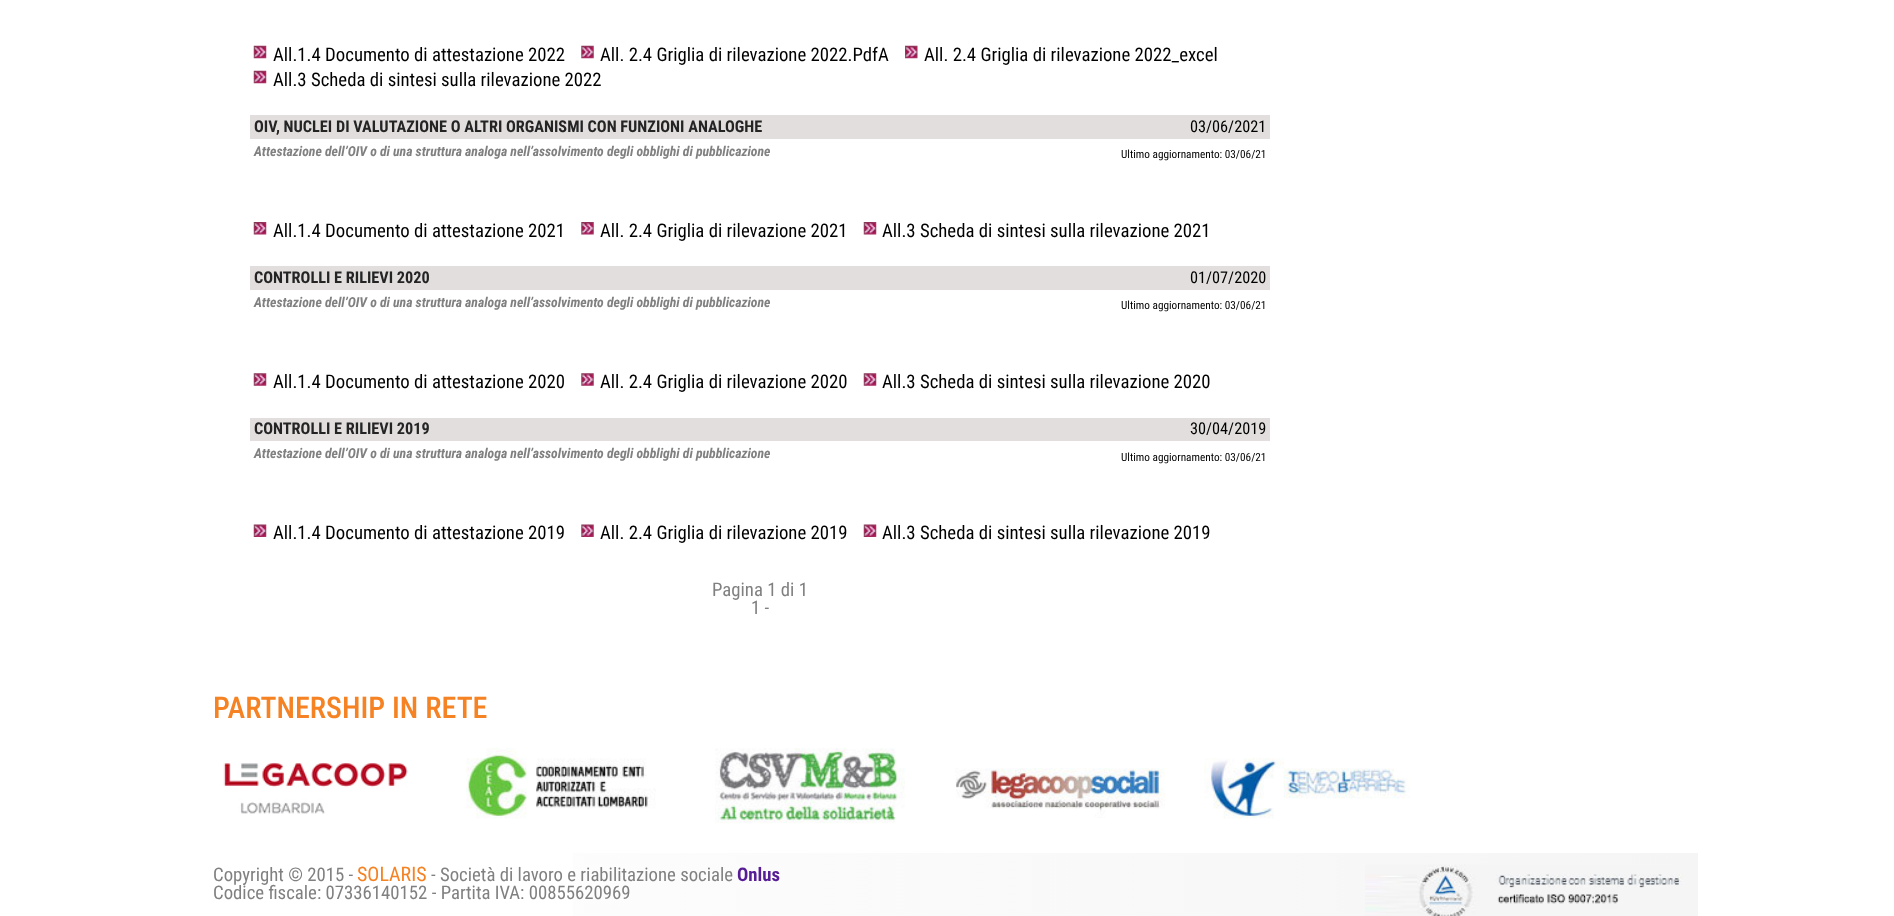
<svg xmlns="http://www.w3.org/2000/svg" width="1894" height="916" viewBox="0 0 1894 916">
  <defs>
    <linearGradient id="g1" gradientUnits="userSpaceOnUse" x1="198" y1="888" x2="1698" y2="888"><stop offset="0" stop-color="rgb(255,255,255)"/><stop offset="1" stop-color="rgb(245,245,245)"/></linearGradient>
  </defs>
  <rect width="100%" height="100%" fill="rgb(255,255,255)"/>
  <image x="253" y="45" width="14" height="14" href="pic1.png"/>
  <text x="273" y="61" font-family="Roboto Condensed" font-size="18.75" fill="rgb(0,0,0)">All.1.4 Documento di attestazione 2022</text>
  <image x="581" y="45" width="13" height="14" href="pic2.png"/>
  <text x="600" y="61" font-family="Roboto Condensed" font-size="18.75" fill="rgb(0,0,0)">All. 2.4 Griglia di rilevazione 2022.PdfA</text>
  <image x="905" y="45" width="13" height="14" href="pic3.png"/>
  <text x="924" y="61" font-family="Roboto Condensed" font-size="18.75" fill="rgb(0,0,0)">All. 2.4 Griglia di rilevazione 2022_excel</text>
  <image x="253" y="70" width="14" height="14" href="pic1.png"/>
  <text x="273" y="86" font-family="Roboto Condensed" font-size="18.75" fill="rgb(0,0,0)">All.3 Scheda di sintesi sulla rilevazione 2022</text>
  <rect x="250" y="115" width="1020" height="24" fill="rgb(226,222,222)"/>
  <text x="254" y="132" font-family="Roboto Condensed" font-size="16.25" font-weight="bold" fill="rgb(36,36,36)">OIV, NUCLEI DI VALUTAZIONE O ALTRI ORGANISMI CON FUNZIONI ANALOGHE</text>
  <text x="1190" y="132" font-family="Roboto Condensed" font-size="16.25" fill="rgb(0,0,0)">03/06/2021</text>
  <text x="1121" y="158" font-family="Roboto Condensed" font-size="11.25" fill="rgb(0,0,0)">Ultimo aggiornamento: 03/06/21</text>
  <text x="254" y="156" font-family="Roboto Condensed" font-size="13.75" font-weight="bold" font-style="italic" fill="rgb(128,128,128)">Attestazione dell’OIV o di una struttura analoga nell’assolvimento degli obblighi di pubblicazione</text>
  <image x="253" y="222" width="14" height="13" href="pic4.png"/>
  <text x="273" y="237" font-family="Roboto Condensed" font-size="18.75" fill="rgb(0,0,0)">All.1.4 Documento di attestazione 2021</text>
  <image x="581" y="222" width="13" height="13" href="pic5.png"/>
  <text x="600" y="237" font-family="Roboto Condensed" font-size="18.75" fill="rgb(0,0,0)">All. 2.4 Griglia di rilevazione 2021</text>
  <image x="863" y="222" width="14" height="13" href="pic6.png"/>
  <text x="882" y="237" font-family="Roboto Condensed" font-size="18.75" fill="rgb(0,0,0)">All.3 Scheda di sintesi sulla rilevazione 2021</text>
  <rect x="250" y="266" width="1020" height="24" fill="rgb(226,222,222)"/>
  <text x="254" y="283" font-family="Roboto Condensed" font-size="16.25" font-weight="bold" fill="rgb(36,36,36)">CONTROLLI E RILIEVI 2020</text>
  <text x="1190" y="283" font-family="Roboto Condensed" font-size="16.25" fill="rgb(0,0,0)">01/07/2020</text>
  <text x="1121" y="309" font-family="Roboto Condensed" font-size="11.25" fill="rgb(0,0,0)">Ultimo aggiornamento: 03/06/21</text>
  <text x="254" y="307" font-family="Roboto Condensed" font-size="13.75" font-weight="bold" font-style="italic" fill="rgb(128,128,128)">Attestazione dell’OIV o di una struttura analoga nell’assolvimento degli obblighi di pubblicazione</text>
  <image x="253" y="373" width="14" height="13" href="pic7.png"/>
  <text x="273" y="388" font-family="Roboto Condensed" font-size="18.75" fill="rgb(0,0,0)">All.1.4 Documento di attestazione 2020</text>
  <image x="581" y="373" width="13" height="13" href="pic8.png"/>
  <text x="600" y="388" font-family="Roboto Condensed" font-size="18.75" fill="rgb(0,0,0)">All. 2.4 Griglia di rilevazione 2020</text>
  <image x="863" y="373" width="14" height="13" href="pic9.png"/>
  <text x="882" y="388" font-family="Roboto Condensed" font-size="18.75" fill="rgb(0,0,0)">All.3 Scheda di sintesi sulla rilevazione 2020</text>
  <rect x="250" y="418" width="1020" height="23" fill="rgb(226,222,222)"/>
  <text x="254" y="434" font-family="Roboto Condensed" font-size="16.25" font-weight="bold" fill="rgb(36,36,36)">CONTROLLI E RILIEVI 2019</text>
  <text x="1190" y="434" font-family="Roboto Condensed" font-size="16.25" fill="rgb(0,0,0)">30/04/2019</text>
  <text x="1121" y="461" font-family="Roboto Condensed" font-size="11.25" fill="rgb(0,0,0)">Ultimo aggiornamento: 03/06/21</text>
  <text x="254" y="458" font-family="Roboto Condensed" font-size="13.75" font-weight="bold" font-style="italic" fill="rgb(128,128,128)">Attestazione dell’OIV o di una struttura analoga nell’assolvimento degli obblighi di pubblicazione</text>
  <image x="253" y="524" width="14" height="13" href="pic10.png"/>
  <text x="273" y="539" font-family="Roboto Condensed" font-size="18.75" fill="rgb(0,0,0)">All.1.4 Documento di attestazione 2019</text>
  <image x="581" y="524" width="13" height="13" href="pic11.png"/>
  <text x="600" y="539" font-family="Roboto Condensed" font-size="18.75" fill="rgb(0,0,0)">All. 2.4 Griglia di rilevazione 2019</text>
  <image x="863" y="524" width="14" height="13" href="pic12.png"/>
  <text x="882" y="539" font-family="Roboto Condensed" font-size="18.75" fill="rgb(0,0,0)">All.3 Scheda di sintesi sulla rilevazione 2019</text>
  <g font-family="Roboto Condensed" font-size="18.75" fill="rgb(128,128,128)">
    <text x="712" y="596">Pagina 1 di 1</text>
    <text x="751" y="614">1 -</text>
  </g>
  <text x="213" y="718" font-family="Roboto Condensed" font-size="30" font-weight="500" fill="rgb(245,130,35)">PARTNERSHIP IN RETE</text>
  <image x="223" y="762" width="185" height="52" href="pic13.png"/>
  <image x="466" y="748" width="190" height="71" href="pic14.png"/>
  <image x="715" y="748" width="190" height="76" href="pic15.png"/>
  <image x="955" y="768" width="210" height="50" href="pic16.png"/>
  <image x="1204" y="758" width="206" height="61" href="pic17.png"/>
  <rect x="573" y="853" width="1125" height="63" fill="url(#g1)"/>
  <text x="213" y="881" font-family="Roboto Condensed" font-size="18.75" fill="rgb(128,128,128)">Copyright © 2015 -</text>
  <text x="357" y="881" font-family="Roboto Condensed" font-size="20" fill="rgb(245,130,35)">SOLARIS</text>
  <text x="431" y="881" font-family="Roboto Condensed" font-size="18.75" fill="rgb(128,128,128)">- Società di lavoro e riabilitazione sociale</text>
  <text x="737" y="881" font-family="Roboto Condensed" font-size="18.75" font-weight="bold" fill="rgb(86,29,149)">Onlus</text>
  <text x="213" y="899" font-family="Roboto Condensed" font-size="18.75" fill="rgb(128,128,128)">Codice fiscale: 07336140152 - Partita IVA: 00855620969</text>
  <image x="1365" y="864" width="318" height="52" href="pic18.png"/>
</svg>
